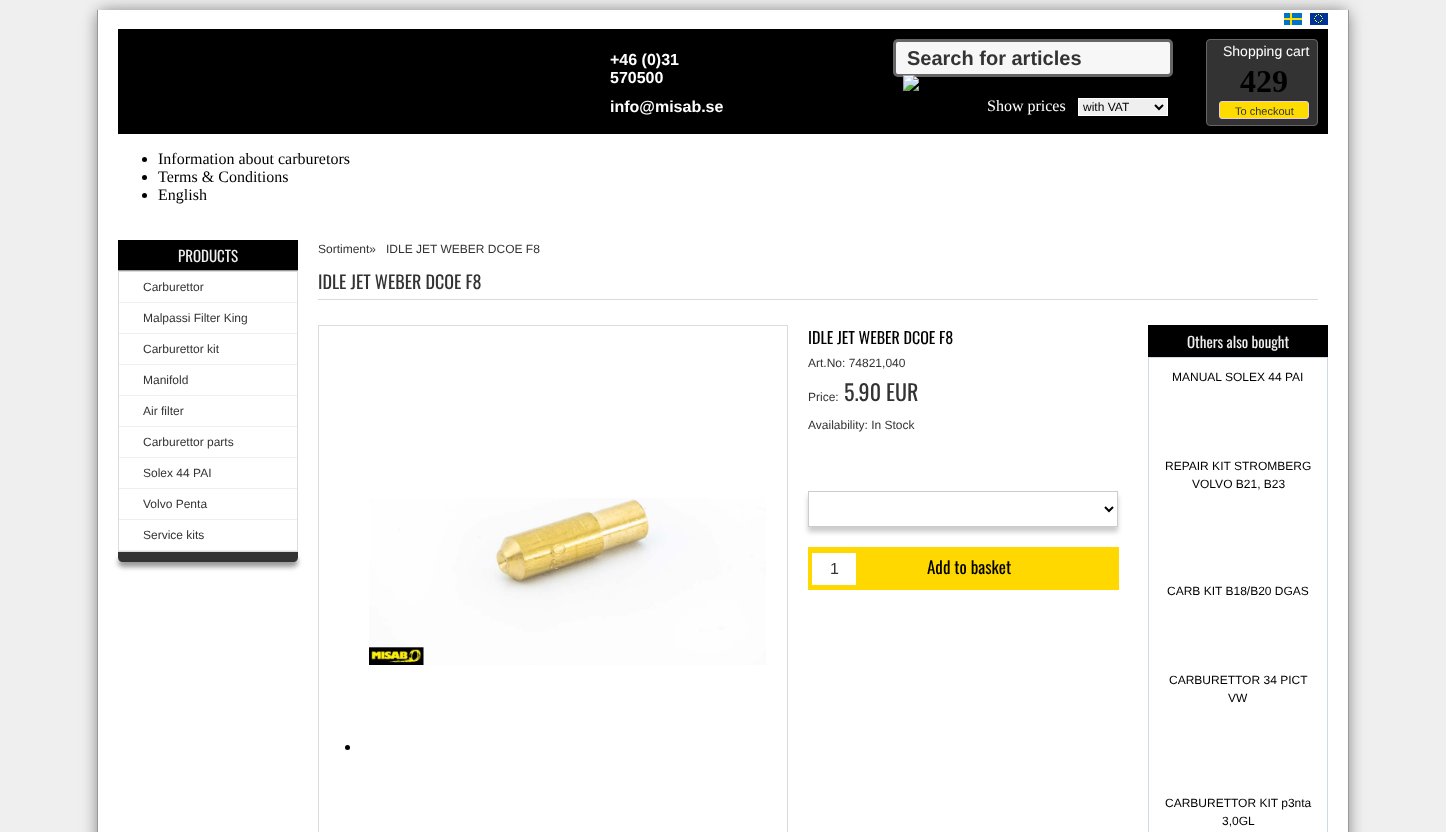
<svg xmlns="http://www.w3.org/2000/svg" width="1446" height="832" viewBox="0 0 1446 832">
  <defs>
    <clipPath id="clip1"><path d="M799 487H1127V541H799ZM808 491H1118V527H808Z" clip-rule="evenodd"/></clipPath>
  </defs>
  <rect width="100%" height="100%" fill="rgb(239,239,239)"/>
  <rect x="97" y="10" width="1252" height="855" rx="10" fill="rgb(136,136,136)" filter="blur(7.5px)"/>
  <rect x="98" y="10" width="1250" height="822" fill="rgb(255,255,255)"/>
  <path d="M97 10H1349V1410C1349 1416 1345 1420 1339 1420H107C101 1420 97 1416 97 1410ZM98 10H1348V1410C1348 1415 1344 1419 1339 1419H107C102 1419 98 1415 98 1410Z" fill="rgb(153,153,153)" fill-rule="evenodd"/>
  <image x="1284" y="13" width="18" height="12" href="pic1.png"/>
  <image x="1310" y="13" width="18" height="12" href="pic2.png"/>
  <rect x="118" y="29" width="1210" height="105" fill="rgb(0,0,0)"/>
  <g font-family="Liberation Sans" font-size="16" font-weight="bold" fill="rgb(255,255,255)">
    <text>
      <tspan x="610" y="65">+46 (0)31</tspan>
      <tspan x="610" y="83">570500</tspan>
      <tspan x="610" y="112">info@misab.se</tspan>
    </text>
  </g>
  <rect x="894.5" y="40.5" width="277" height="35" rx="3.5" fill="rgb(247,247,247)" stroke="rgb(102,102,102)" stroke-width="3"/>
  <text x="907" y="65" font-family="Liberation Sans" font-size="20" font-weight="bold" fill="rgb(51,51,51)">Search for articles</text>
  <image x="903" y="75" width="16" height="16" href="pic3.png"/>
  <text x="987" y="111" font-family="Liberation Serif" font-size="16" fill="rgb(255,255,255)">Show prices</text>
  <rect x="1078.5" y="98.5" width="89" height="17" fill="rgb(239,239,239)" stroke="rgb(255,255,255)"/>
  <path d="M1155 105L1159 109L1163 105" fill="none" stroke="rgb(0,0,0)" stroke-width="2"/>
  <text x="1083" y="111" font-family="Liberation Sans" font-size="12" fill="rgb(0,0,0)">with VAT</text>
  <rect x="1206.5" y="39.5" width="111" height="86" rx="3.5" fill="rgb(51,51,51)" stroke="rgb(102,102,102)"/>
  <text x="1223" y="56" font-family="Liberation Sans" font-size="14" fill="rgb(255,255,255)">Shopping cart</text>
  <image x="1240" y="71" width="47" height="21" href="pic4.png"/>
  <rect x="1219.5" y="101.5" width="89" height="17" rx="2.5" fill="rgb(254,220,0)" stroke="rgb(231,207,221)"/>
  <text x="1235" y="115" font-family="Liberation Sans" font-size="11" fill="rgb(51,51,51)">To checkout</text>
  <circle cx="144.5" cy="159.5" r="2.5" fill="rgb(0,0,0)"/>
  <text x="158" y="164" font-family="Liberation Serif" font-size="16" fill="rgb(0,0,0)">Information about carburetors</text>
  <circle cx="144.5" cy="177.5" r="2.5" fill="rgb(0,0,0)"/>
  <text x="158" y="182" font-family="Liberation Serif" font-size="16" fill="rgb(0,0,0)">Terms &amp; Conditions</text>
  <circle cx="144.5" cy="195.5" r="2.5" fill="rgb(0,0,0)"/>
  <text x="158" y="200" font-family="Liberation Serif" font-size="16" fill="rgb(0,0,0)">English</text>
  <rect x="118" y="557" width="180" height="5" fill="rgb(249,249,249)"/>
  <rect x="118" y="240" width="180" height="30" fill="rgb(0,0,0)"/>
  <rect x="118" y="270" width="180" height="1" fill="rgb(153,153,153)"/>
  <text x="178" y="262" font-family="Oswald" font-size="15" fill="rgb(239,239,239)">PRODUCTS</text>
  <rect x="118" y="557" width="180" height="10" rx="5" fill="rgb(153,153,153)" filter="blur(2.5px)"/>
  <rect x="118.5" y="271.5" width="179" height="280" fill="none" stroke="rgb(219,219,219)"/>
  <rect x="119" y="302" width="178" height="1" fill="rgb(239,239,239)"/>
  <text x="143" y="291" font-family="Liberation Sans" font-size="12" fill="rgb(51,51,51)">Carburettor</text>
  <rect x="119" y="333" width="178" height="1" fill="rgb(239,239,239)"/>
  <text x="143" y="322" font-family="Liberation Sans" font-size="12" fill="rgb(51,51,51)">Malpassi Filter King</text>
  <rect x="119" y="364" width="178" height="1" fill="rgb(239,239,239)"/>
  <text x="143" y="353" font-family="Liberation Sans" font-size="12" fill="rgb(51,51,51)">Carburettor kit</text>
  <rect x="119" y="395" width="178" height="1" fill="rgb(239,239,239)"/>
  <text x="143" y="384" font-family="Liberation Sans" font-size="12" fill="rgb(51,51,51)">Manifold</text>
  <rect x="119" y="426" width="178" height="1" fill="rgb(239,239,239)"/>
  <text x="143" y="415" font-family="Liberation Sans" font-size="12" fill="rgb(51,51,51)">Air filter</text>
  <rect x="119" y="457" width="178" height="1" fill="rgb(239,239,239)"/>
  <text x="143" y="446" font-family="Liberation Sans" font-size="12" fill="rgb(51,51,51)">Carburettor parts</text>
  <rect x="119" y="488" width="178" height="1" fill="rgb(239,239,239)"/>
  <text x="143" y="477" font-family="Liberation Sans" font-size="12" fill="rgb(51,51,51)">Solex 44 PAI</text>
  <rect x="119" y="519" width="178" height="1" fill="rgb(239,239,239)"/>
  <text x="143" y="508" font-family="Liberation Sans" font-size="12" fill="rgb(51,51,51)">Volvo Penta</text>
  <rect x="119" y="550" width="178" height="1" fill="rgb(239,239,239)"/>
  <text x="143" y="539" font-family="Liberation Sans" font-size="12" fill="rgb(51,51,51)">Service kits</text>
  <path d="M118 552H298V557C298 560 296 562 293 562H123C120 562 118 560 118 557Z" fill="rgb(51,51,51)"/>
  <g font-family="Liberation Sans" font-size="12" fill="rgb(51,51,51)">
    <text x="318" y="253">Sortiment»</text>
    <text x="386" y="253">IDLE JET WEBER DCOE F8</text>
  </g>
  <text x="318" y="289" font-family="Oswald" font-size="18" fill="rgb(51,51,51)">IDLE JET WEBER DCOE F8</text>
  <rect x="318" y="299" width="1000" height="1" fill="rgb(219,219,219)"/>
  <rect x="318.5" y="325.5" width="469" height="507" fill="none" stroke="rgb(219,219,219)"/>
  <image x="369" y="498" width="397" height="167" href="pic5.png"/>
  <circle cx="347.5" cy="747.5" r="2.5" fill="rgb(0,0,0)"/>
  <text x="808" y="344" font-family="Oswald" font-size="16" fill="rgb(0,0,0)">IDLE JET WEBER DCOE F8</text>
  <g font-family="Liberation Sans" font-size="12" fill="rgb(51,51,51)">
    <text x="808" y="367">Art.No: 74821,040</text>
    <text x="808" y="401">Price:</text>
  </g>
  <text x="844" y="401" font-family="Oswald" font-size="22" fill="rgb(51,51,51)">5.90 EUR</text>
  <text x="808" y="429" font-family="Liberation Sans" font-size="12" fill="rgb(51,51,51)">Availability: In Stock</text>
  <g clip-path="url(#clip1)">
    <rect x="808" y="496" width="310" height="36" fill="rgb(204,204,204)" filter="blur(2.5px)"/>
  </g>
  <rect x="808.5" y="491.5" width="309" height="35" fill="none" stroke="rgb(204,204,204)"/>
  <path d="M1105 507L1109 511L1113 507" fill="none" stroke="rgb(0,0,0)" stroke-width="2"/>
  <rect x="808" y="547" width="311" height="43" fill="rgb(255,216,0)"/>
  <rect x="812" y="553" width="44" height="32" fill="rgb(255,255,255)"/>
  <text x="830" y="574" font-family="Liberation Sans" font-size="16" fill="rgb(51,51,51)">1</text>
  <text x="927" y="574" font-family="Oswald" font-size="17" fill="rgb(0,0,0)">Add to basket</text>
  <rect x="1148" y="325" width="180" height="32" fill="rgb(0,0,0)"/>
  <text x="1187" y="348" font-family="Oswald" font-size="15" fill="rgb(239,239,239)">Others also bought</text>
  <rect x="1148.5" y="357.5" width="179" height="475" fill="none" stroke="rgb(206,217,232)"/>
  <g font-family="Liberation Sans" font-size="12" fill="rgb(0,0,0)">
    <text x="1172" y="381">MANUAL SOLEX 44 PAI</text>
    <text x="1165" y="470">REPAIR KIT STROMBERG</text>
    <text x="1192" y="488">VOLVO B21, B23</text>
    <text x="1167" y="595">CARB KIT B18/B20 DGAS</text>
    <text x="1169" y="684">CARBURETTOR 34 PICT</text>
    <text x="1228" y="702">VW</text>
    <text x="1165" y="807">CARBURETTOR KIT p3nta</text>
    <text x="1222" y="825">3,0GL</text>
  </g>
</svg>
